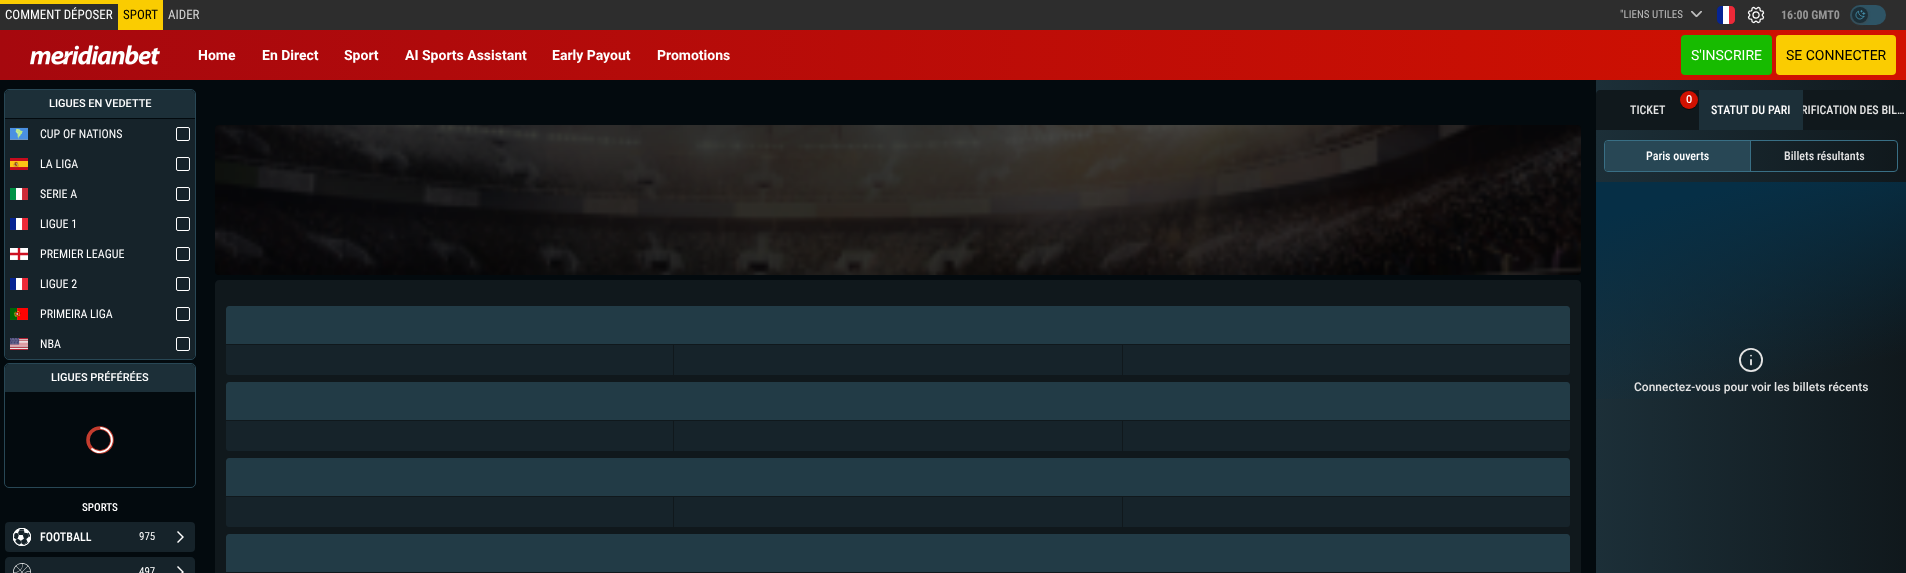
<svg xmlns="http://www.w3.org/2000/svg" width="1906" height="573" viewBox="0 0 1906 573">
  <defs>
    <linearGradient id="g1" gradientUnits="userSpaceOnUse" x1="0" y1="40" x2="1906" y2="40"><stop offset="0" stop-color="rgb(166,8,14)"/><stop offset="1" stop-color="rgb(209,17,1)"/></linearGradient>
    <linearGradient id="g2" gradientUnits="userSpaceOnUse" x1="1596" y1="327" x2="1906" y2="327"><stop offset="0" stop-color="rgb(28,47,56)"/><stop offset="1" stop-color="rgb(16,24,28)"/></linearGradient>
    <clipPath id="clip1"><rect x="1803" y="90" width="103" height="40"/></clipPath>
    <linearGradient id="g3" gradientUnits="userSpaceOnUse" x1="1800" y1="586" x2="1702" y2="158"><stop offset="0.46" stop-color="rgb(6,47,70)" stop-opacity="0"/><stop offset="0.92" stop-color="rgb(6,47,70)"/></linearGradient>
  </defs>
  <rect width="100%" height="100%" fill="rgb(3,10,14)"/>
  <rect x="0" y="30" width="1906" height="50" fill="url(#g1)"/>
  <rect x="0" y="0" width="1906" height="30" fill="rgb(45,45,45)"/>
  <rect x="0" y="0" width="118" height="4" fill="rgb(250,204,1)"/>
  <text x="5" y="19" font-family="Roboto Condensed" font-size="13" fill="rgb(255,255,255)">COMMENT DÉPOSER</text>
  <rect x="118" y="0" width="45" height="30" fill="rgb(250,204,1)"/>
  <text x="123" y="19" font-family="Roboto Condensed" font-size="13" fill="rgb(0,0,0)">SPORT</text>
  <text x="168" y="19" font-family="Roboto Condensed" font-size="13" fill="rgb(213,213,213)">AIDER</text>
  <text x="1620" y="18" font-family="Roboto Condensed" font-size="11" fill="rgb(189,189,189)">"LIENS UTILES</text>
  <image x="1691" y="10" width="11" height="8" href="pic1.png"/>
  <path d="M1729 6H1731C1733 6 1735 8 1735 10V20C1735 22 1733 24 1731 24H1729Z" fill="rgb(236,41,56)"/>
  <path d="M1721 6H1723V24H1721C1719 24 1717 22 1717 20V10C1717 8 1719 6 1721 6Z" fill="rgb(6,36,147)"/>
  <rect x="1723" y="6" width="6" height="18" fill="rgb(255,255,255)"/>
  <image x="1747" y="6" width="18" height="18" href="pic2.png"/>
  <text x="1781" y="19" font-family="Roboto Condensed" font-size="12" font-weight="bold" fill="rgb(150,150,150)">16:00 GMT0</text>
  <rect x="1850" y="5" width="36" height="20" rx="10" fill="rgb(46,84,101)"/>
  <rect x="1852" y="8" width="16" height="16" rx="8" fill="rgba(68,68,68,0.75)" filter="blur(1.5px)"/>
  <circle cx="1860" cy="15" r="8" fill="rgb(28,47,56)"/>
  <image x="1855" y="10" width="11" height="10" href="pic3.png"/>
  <image x="30" y="45" width="130" height="20" href="pic4.png"/>
  <g font-family="Roboto" font-size="14" font-weight="bold" fill="rgb(255,255,255)">
    <text x="198" y="60">Home</text>
    <text x="262" y="60">En Direct</text>
    <text x="344" y="60">Sport</text>
    <text x="405" y="60">AI Sports Assistant</text>
    <text x="552" y="60">Early Payout</text>
    <text x="657" y="60">Promotions</text>
  </g>
  <rect x="1681" y="35" width="91" height="40" rx="4" fill="rgb(23,187,0)"/>
  <text x="1691" y="60" font-family="Roboto" font-size="14" fill="rgb(255,255,255)">S'INSCRIRE</text>
  <rect x="1776" y="35" width="120" height="40" rx="4" fill="rgb(250,204,1)"/>
  <text x="1786" y="60" font-family="Roboto" font-size="14" fill="rgb(0,0,0)">SE CONNECTER</text>
  <rect x="5" y="119" width="190" height="210" fill="rgb(22,35,42)"/>
  <path d="M5 329H195V355C195 357 193 359 191 359H9C7 359 5 357 5 355Z" fill="rgb(22,35,42)"/>
  <rect x="4.5" y="89.5" width="191" height="270" rx="4.5" fill="none" stroke="rgb(40,71,85)"/>
  <path d="M9 90H191C193 90 195 92 195 94V119H5V94C5 92 7 90 9 90Z" fill="rgb(28,47,56)"/>
  <rect x="5" y="118" width="190" height="1" fill="rgb(3,10,14)"/>
  <text x="49" y="107" font-family="Roboto" font-size="11" font-weight="500" fill="rgb(255,255,255)">LIGUES EN VEDETTE</text>
  <image x="10" y="127" width="18" height="13" href="pic5.png"/>
  <text x="40" y="138" font-family="Roboto Condensed" font-size="12" fill="rgb(255,255,255)">CUP OF NATIONS</text>
  <image x="176" y="127" width="14" height="14" href="pic6.png"/>
  <image x="10" y="158" width="18" height="12" href="pic7.png"/>
  <text x="40" y="168" font-family="Roboto Condensed" font-size="12" fill="rgb(255,255,255)">LA LIGA</text>
  <image x="176" y="157" width="14" height="14" href="pic6.png"/>
  <image x="10" y="188" width="18" height="12" href="pic8.png"/>
  <text x="40" y="198" font-family="Roboto Condensed" font-size="12" fill="rgb(255,255,255)">SERIE A</text>
  <image x="176" y="187" width="14" height="14" href="pic6.png"/>
  <image x="10" y="218" width="18" height="12" href="pic9.png"/>
  <text x="40" y="228" font-family="Roboto Condensed" font-size="12" fill="rgb(255,255,255)">LIGUE 1</text>
  <image x="176" y="217" width="14" height="14" href="pic6.png"/>
  <image x="10" y="248" width="18" height="12" href="pic10.png"/>
  <text x="40" y="258" font-family="Roboto Condensed" font-size="12" fill="rgb(255,255,255)">PREMIER LEAGUE</text>
  <image x="176" y="247" width="14" height="14" href="pic6.png"/>
  <image x="10" y="278" width="18" height="12" href="pic9.png"/>
  <text x="40" y="288" font-family="Roboto Condensed" font-size="12" fill="rgb(255,255,255)">LIGUE 2</text>
  <image x="176" y="277" width="14" height="14" href="pic6.png"/>
  <image x="10" y="308" width="18" height="12" href="pic11.png"/>
  <text x="40" y="318" font-family="Roboto Condensed" font-size="12" fill="rgb(255,255,255)">PRIMEIRA LIGA</text>
  <image x="176" y="307" width="14" height="14" href="pic6.png"/>
  <image x="10" y="338" width="18" height="12" href="pic12.png"/>
  <text x="40" y="348" font-family="Roboto Condensed" font-size="12" fill="rgb(255,255,255)">NBA</text>
  <image x="176" y="337" width="14" height="14" href="pic6.png"/>
  <rect x="4.5" y="363.5" width="191" height="124" rx="4.5" fill="none" stroke="rgb(40,71,85)"/>
  <path d="M9 364H191C193 364 195 366 195 368V393H5V368C5 366 7 364 9 364Z" fill="rgb(28,47,56)"/>
  <rect x="5" y="392" width="190" height="1" fill="rgb(3,10,14)"/>
  <text x="51" y="381" font-family="Roboto" font-size="11" font-weight="500" fill="rgb(255,255,255)">LIGUES PRÉFÉRÉES</text>
  <circle cx="100" cy="440" r="12" fill="none" stroke="rgb(196,61,47)" stroke-width="3.6"/>
  <path d="M109.5 433C118 444.5 102.5 458.5 92 449M101 428C104.5 428.5 107.5 430 109.5 433" fill="none" stroke="rgb(255,255,255)" stroke-width="1.8" stroke-linecap="round"/>
  <text x="82" y="511" font-family="Roboto Condensed" font-size="11" font-weight="500" fill="rgb(255,255,255)">SPORTS</text>
  <rect x="5" y="522" width="190" height="30" rx="4" fill="rgb(22,35,42)"/>
  <image x="13" y="528" width="18" height="18" href="pic13.png"/>
  <text x="40" y="541" font-family="Roboto Condensed" font-size="12" font-weight="500" fill="rgb(255,255,255)">FOOTBALL</text>
  <text x="139" y="540" font-family="Roboto Condensed" font-size="11" fill="rgb(255,255,255)">975</text>
  <image x="177" y="531" width="7" height="12" href="pic14.png"/>
  <path d="M9 557H191C193 557 195 559 195 561V573H5V561C5 559 7 557 9 557Z" fill="rgb(22,35,42)"/>
  <image x="13" y="563" width="18" height="10" href="pic15.png"/>
  <text x="139" y="575" font-family="Roboto Condensed" font-size="11" fill="rgb(255,255,255)">497</text>
  <image x="177" y="566" width="7" height="7" href="pic16.png"/>
  <image x="215" y="125" width="1366" height="150" href="pic17.png"/>
  <path d="M219 280H1577C1579 280 1581 282 1581 284V573H215V284C215 282 217 280 219 280Z" fill="rgb(16,24,28)"/>
  <path d="M226 345H1570V372C1570 373.5 1568.5 375 1567 375H229C227.5 375 226 373.5 226 372Z" fill="rgb(22,35,42)"/>
  <path d="M673 344V375H674V345H1122V375H1123V344Z" fill="rgb(16,24,28)"/>
  <path d="M229 306H1567C1568.5 306 1570 307.5 1570 309V345H226V309C226 307.5 227.5 306 229 306Z" fill="rgb(34,59,70)"/>
  <rect x="226" y="344" width="1344" height="1" fill="rgb(16,24,28)"/>
  <path d="M226 345H673V375H229C227.5 375 226 373.5 226 372Z" fill="rgb(22,35,42)"/>
  <path d="M1123 345H1570V372C1570 373.5 1568.5 375 1567 375H1123Z" fill="rgb(22,35,42)"/>
  <path d="M226 421H1570V448C1570 449.5 1568.5 451 1567 451H229C227.5 451 226 449.5 226 448Z" fill="rgb(22,35,42)"/>
  <path d="M673 420V451H674V421H1122V451H1123V420Z" fill="rgb(16,24,28)"/>
  <path d="M229 382H1567C1568.5 382 1570 383.5 1570 385V421H226V385C226 383.5 227.5 382 229 382Z" fill="rgb(34,59,70)"/>
  <rect x="226" y="420" width="1344" height="1" fill="rgb(16,24,28)"/>
  <path d="M226 421H673V451H229C227.5 451 226 449.5 226 448Z" fill="rgb(22,35,42)"/>
  <path d="M1123 421H1570V448C1570 449.5 1568.5 451 1567 451H1123Z" fill="rgb(22,35,42)"/>
  <path d="M226 497H1570V524C1570 525.5 1568.5 527 1567 527H229C227.5 527 226 525.5 226 524Z" fill="rgb(22,35,42)"/>
  <path d="M673 496V527H674V497H1122V527H1123V496Z" fill="rgb(16,24,28)"/>
  <path d="M229 458H1567C1568.5 458 1570 459.5 1570 461V497H226V461C226 459.5 227.5 458 229 458Z" fill="rgb(34,59,70)"/>
  <rect x="226" y="496" width="1344" height="1" fill="rgb(16,24,28)"/>
  <path d="M226 497H673V527H229C227.5 527 226 525.5 226 524Z" fill="rgb(22,35,42)"/>
  <path d="M1123 497H1570V524C1570 525.5 1568.5 527 1567 527H1123Z" fill="rgb(22,35,42)"/>
  <path d="M229 534H1567C1568.5 534 1570 535.5 1570 537V573H226V537C226 535.5 227.5 534 229 534Z" fill="rgb(34,59,70)"/>
  <rect x="226" y="572" width="1344" height="1" fill="rgb(16,24,28)"/>
  <rect x="1596" y="80" width="310" height="493" fill="url(#g2)"/>
  <path d="M1600 90H1902C1904 90 1906 92 1906 94V130H1596V94C1596 92 1598 90 1600 90Z" fill="rgb(16,24,28)"/>
  <rect x="1680" y="92" width="18" height="18" rx="9" fill="rgba(0,0,0,0.5)" filter="blur(0.5px)"/>
  <circle cx="1689" cy="100" r="9" fill="rgb(209,17,1)"/>
  <text x="1686" y="103" font-family="Roboto" font-size="11" font-weight="500" fill="rgb(255,255,255)">0</text>
  <text x="1630" y="114" font-family="Roboto Condensed" font-size="12" font-weight="500" fill="rgb(228,228,228)">TICKET</text>
  <rect x="1699" y="90" width="104" height="40" fill="rgb(28,47,56)"/>
  <text x="1711" y="114" font-family="Roboto Condensed" font-size="12" font-weight="500" fill="rgb(255,255,255)">STATUT DU PARI</text>
  <g clip-path="url(#clip1)">
    <text x="1801" y="114" font-family="Roboto Condensed" font-size="12" font-weight="500" fill="rgb(228,228,228)">RIFICATION DES BIL…</text>
  </g>
  <rect x="1604.5" y="140.5" width="293" height="31" rx="3.5" fill="none" stroke="rgb(57,111,133)"/>
  <path d="M1608 141H1751V171H1608C1606.5 171 1605 169.5 1605 168V144C1605 142.5 1606.5 141 1608 141Z" fill="rgb(40,71,85)"/>
  <rect x="1750" y="141" width="1" height="30" fill="rgb(57,111,133)"/>
  <text x="1646" y="160" font-family="Roboto Condensed" font-size="12" font-weight="500" fill="rgb(255,255,255)">Paris ouverts</text>
  <text x="1784" y="160" font-family="Roboto Condensed" font-size="12" font-weight="500" fill="rgb(228,228,228)">Billets résultants</text>
  <rect x="1596" y="182" width="310" height="217" fill="url(#g3)"/>
  <image x="1739" y="348" width="24" height="24" href="pic18.png"/>
  <text x="1634" y="391" font-family="Roboto" font-size="12" font-weight="500" fill="rgb(228,228,228)">Connectez-vous pour voir les billets récents</text>
</svg>
